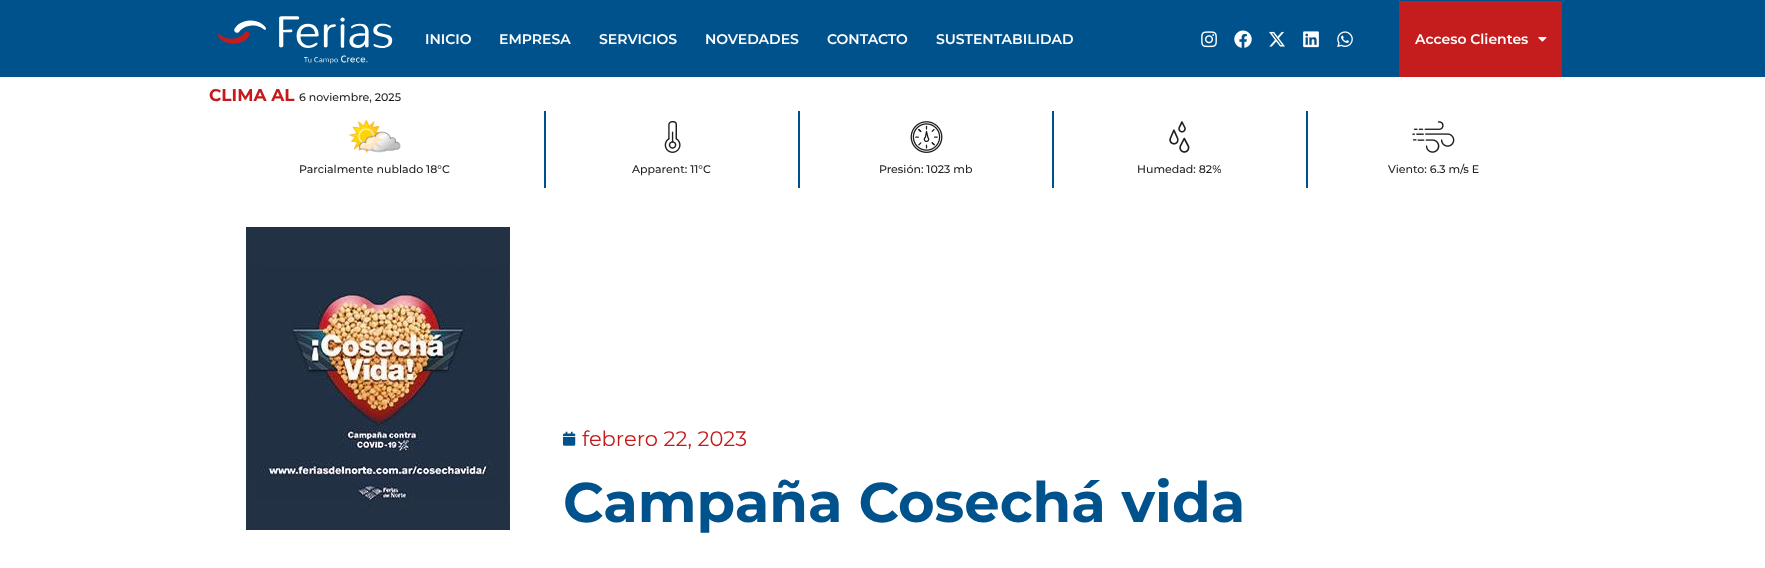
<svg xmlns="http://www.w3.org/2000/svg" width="1765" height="568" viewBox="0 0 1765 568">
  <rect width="100%" height="100%" fill="rgb(0,82,140)"/>
  <image x="217" y="16" width="176" height="48" href="pic1.png"/>
  <g font-family="Montserrat" font-size="14" font-weight="600" fill="rgb(255,255,255)">
    <text x="425" y="44">INICIO</text>
    <text x="499" y="44">EMPRESA</text>
    <text x="599" y="44">SERVICIOS</text>
    <text x="705" y="44">NOVEDADES</text>
    <text x="827" y="44">CONTACTO</text>
    <text x="936" y="44">SUSTENTABILIDAD</text>
  </g>
  <image x="1201" y="31" width="16" height="17" href="pic2.png"/>
  <image x="1234" y="30" width="18" height="18" href="pic3.png"/>
  <image x="1269" y="31" width="16" height="16" href="pic4.png"/>
  <image x="1303" y="31" width="16" height="17" href="pic5.png"/>
  <image x="1337" y="31" width="16" height="17" href="pic6.png"/>
  <rect x="1399" y="1" width="163" height="76" fill="rgb(197,29,29)"/>
  <text x="1415" y="44" font-family="Montserrat" font-size="14" font-weight="600" fill="rgb(255,255,255)">Acceso Clientes</text>
  <image x="1538" y="37" width="9" height="5" href="pic7.png"/>
  <rect x="0" y="77" width="1765" height="491" fill="rgb(255,255,255)"/>
  <text x="209" y="101" font-family="Montserrat" font-size="17" font-weight="bold" fill="rgb(197,26,27)">CLIMA AL</text>
  <text x="299" y="101" font-family="Montserrat" font-size="11" font-weight="500" fill="rgb(29,29,27)">6 noviembre, 2025</text>
  <image x="348" y="119" width="53" height="35" href="pic8.png"/>
  <text x="299" y="173" font-family="Montserrat" font-size="11" font-weight="500" fill="rgb(34,34,34)">Parcialmente nublado 18°C</text>
  <image x="664" y="121" width="17" height="32" href="pic9.png"/>
  <rect x="544" y="111" width="2" height="77" fill="rgb(0,82,140)"/>
  <text x="632" y="173" font-family="Montserrat" font-size="11" font-weight="500" fill="rgb(34,34,34)">Apparent: 11°C</text>
  <image x="910" y="121" width="33" height="32" href="pic10.png"/>
  <rect x="798" y="111" width="2" height="77" fill="rgb(0,82,140)"/>
  <text x="879" y="173" font-family="Montserrat" font-size="11" font-weight="500" fill="rgb(34,34,34)">Presión: 1023 mb</text>
  <image x="1169" y="121" width="21" height="32" href="pic11.png"/>
  <rect x="1052" y="111" width="2" height="77" fill="rgb(0,82,140)"/>
  <text x="1137" y="173" font-family="Montserrat" font-size="11" font-weight="500" fill="rgb(34,34,34)">Humedad: 82%</text>
  <image x="1412" y="121" width="43" height="32" href="pic12.png"/>
  <rect x="1306" y="111" width="2" height="77" fill="rgb(0,82,140)"/>
  <text x="1388" y="173" font-family="Montserrat" font-size="11" font-weight="500" fill="rgb(34,34,34)">Viento: 6.3 m/s E</text>
  <image x="246" y="227" width="264" height="303" href="pic13.png"/>
  <image x="563" y="431" width="13" height="15" href="pic14.png"/>
  <text x="582" y="446" font-family="Montserrat" font-size="21" fill="rgb(197,26,27)">febrero 22, 2023</text>
  <text x="563" y="522" font-family="Montserrat" font-size="56" font-weight="bold" fill="rgb(0,82,140)">Campaña Cosechá vida</text>
</svg>
